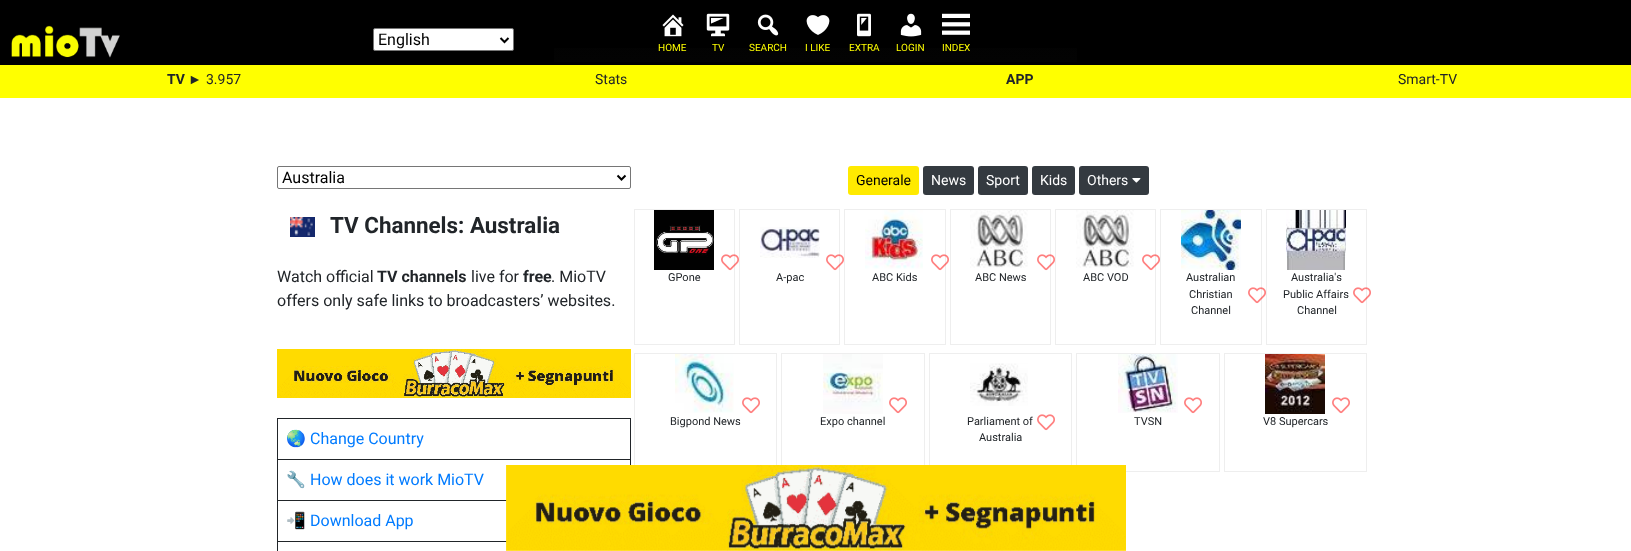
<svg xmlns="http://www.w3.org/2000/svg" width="1631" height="551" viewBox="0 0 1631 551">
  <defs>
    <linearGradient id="g1" gradientUnits="userSpaceOnUse" x1="816" y1="7" x2="816" y2="62"><stop offset="0" stop-color="rgb(1,1,1)"/><stop offset="1" stop-color="rgb(3,3,3)"/></linearGradient>
  </defs>
  <rect width="100%" height="100%" fill="rgb(255,255,255)"/>
  <rect x="0" y="0" width="1631" height="65" fill="rgb(0,0,0)"/>
  <image x="11" y="25" width="109" height="33" href="pic1.png"/>
  <rect x="373.5" y="28.5" width="140" height="22" rx="1.5" fill="rgb(255,255,255)" stroke="rgb(118,118,118)"/>
  <path d="M500.5 38L504.5 42L508.5 38" fill="none" stroke="rgb(0,0,0)" stroke-width="2"/>
  <text x="378" y="45" font-family="Roboto" font-size="16" fill="rgb(0,0,0)">English</text>
  <rect x="554" y="48" width="523" height="14" fill="url(#g1)"/>
  <image x="662" y="14" width="22" height="23" href="pic2.png"/>
  <text x="658" y="51" font-family="Roboto" font-size="10" fill="rgb(255,255,0)">HOME</text>
  <image x="706" y="13" width="24" height="24" href="pic3.png"/>
  <text x="712" y="51" font-family="Roboto" font-size="10" fill="rgb(255,255,0)">TV</text>
  <image x="757" y="14" width="22" height="22" href="pic4.png"/>
  <text x="749" y="51" font-family="Roboto" font-size="10" fill="rgb(255,255,0)">SEARCH</text>
  <image x="806" y="15" width="24" height="20" href="pic5.png"/>
  <text x="805" y="51" font-family="Roboto" font-size="10" fill="rgb(255,255,0)">I LIKE</text>
  <image x="857" y="13" width="14" height="24" href="pic6.png"/>
  <text x="849" y="51" font-family="Roboto" font-size="10" fill="rgb(255,255,0)">EXTRA</text>
  <image x="900" y="13" width="22" height="24" href="pic7.png"/>
  <text x="896" y="51" font-family="Roboto" font-size="10" fill="rgb(255,255,0)">LOGIN</text>
  <image x="942" y="13" width="28" height="22" href="pic8.png"/>
  <text x="942" y="51" font-family="Roboto" font-size="10" fill="rgb(255,255,0)">INDEX</text>
  <rect x="0" y="65" width="1631" height="33" fill="rgb(255,255,0)"/>
  <text x="167" y="84" font-family="Roboto" font-size="14" font-weight="bold" fill="rgb(33,37,41)">TV</text>
  <text x="188" y="84" font-family="Liberation Sans" font-size="14" font-weight="bold" fill="rgb(33,37,41)">►</text>
  <g font-family="Roboto" font-size="14" fill="rgb(33,37,41)">
    <text x="206" y="84">3.957</text>
    <text x="595" y="84">Stats</text>
  </g>
  <text x="1006" y="84" font-family="Roboto" font-size="14" font-weight="bold" fill="rgb(33,37,41)">APP</text>
  <text x="1398" y="84" font-family="Roboto" font-size="14" fill="rgb(33,37,41)">Smart-TV</text>
  <rect x="277.5" y="166.5" width="353" height="22" rx="1.5" fill="none" stroke="rgb(118,118,118)"/>
  <path d="M617.5 175.5L621.5 179.5L625.5 175.5" fill="none" stroke="rgb(0,0,0)" stroke-width="2"/>
  <text x="282" y="183" font-family="Roboto" font-size="16" fill="rgb(0,0,0)">Australia</text>
  <image x="290" y="217" width="25" height="20" href="pic9.png"/>
  <text x="330" y="233" font-family="Roboto" font-size="22.4" font-weight="bold" fill="rgb(33,37,41)">TV Channels: Australia</text>
  <text x="277" y="282" font-family="Roboto" font-size="16" fill="rgb(33,37,41)">Watch official</text>
  <text x="377" y="282" font-family="Roboto" font-size="16" font-weight="bold" fill="rgb(33,37,41)">TV channels</text>
  <text x="471" y="282" font-family="Roboto" font-size="16" fill="rgb(33,37,41)">live for</text>
  <text x="523" y="282" font-family="Roboto" font-size="16" font-weight="bold" fill="rgb(33,37,41)">free</text>
  <g font-family="Roboto" font-size="16" fill="rgb(33,37,41)">
    <text x="551" y="282">. MioTV</text>
    <text x="277" y="306">offers only safe links to broadcasters’ websites.</text>
  </g>
  <image x="277" y="349" width="354" height="49" href="pic10.png"/>
  <rect x="277" y="418" width="354" height="1" fill="rgb(33,37,41)"/>
  <rect x="277" y="459" width="354" height="1" fill="rgb(33,37,41)"/>
  <rect x="630" y="459" width="1" height="6" fill="rgb(33,37,41)"/>
  <rect x="630" y="418" width="1" height="42" fill="rgb(33,37,41)"/>
  <rect x="277" y="500" width="230" height="1" fill="rgb(33,37,41)"/>
  <rect x="277" y="541" width="230" height="1" fill="rgb(33,37,41)"/>
  <rect x="277" y="541" width="1" height="10" fill="rgb(33,37,41)"/>
  <rect x="277" y="500" width="1" height="42" fill="rgb(33,37,41)"/>
  <rect x="277" y="459" width="1" height="42" fill="rgb(33,37,41)"/>
  <rect x="277" y="418" width="1" height="42" fill="rgb(33,37,41)"/>
  <text x="286" y="444" font-family="Noto Color Emoji" font-size="16" fill="rgb(33,37,41)">🌏</text>
  <text x="310" y="444" font-family="Roboto" font-size="16" fill="rgb(0,123,255)">Change Country</text>
  <text x="286" y="485" font-family="Noto Color Emoji" font-size="16" fill="rgb(33,37,41)">🔧</text>
  <text x="310" y="485" font-family="Roboto" font-size="16" fill="rgb(0,123,255)">How does it work MioTV</text>
  <text x="286" y="526" font-family="Noto Color Emoji" font-size="16" fill="rgb(33,37,41)">📲</text>
  <text x="310" y="526" font-family="Roboto" font-size="16" fill="rgb(0,123,255)">Download App</text>
  <rect x="848" y="166" width="71" height="29" rx="3" fill="rgb(255,234,0)"/>
  <text x="856" y="185" font-family="Roboto" font-size="14" fill="rgb(0,0,0)">Generale</text>
  <rect x="923" y="166" width="51" height="29" rx="3" fill="rgb(52,58,64)"/>
  <text x="931" y="185" font-family="Roboto" font-size="14" fill="rgb(255,255,255)">News</text>
  <rect x="978" y="166" width="50" height="29" rx="3" fill="rgb(52,58,64)"/>
  <text x="986" y="185" font-family="Roboto" font-size="14" fill="rgb(255,255,255)">Sport</text>
  <rect x="1032" y="166" width="43" height="29" rx="3" fill="rgb(52,58,64)"/>
  <text x="1040" y="185" font-family="Roboto" font-size="14" fill="rgb(255,255,255)">Kids</text>
  <rect x="1079" y="166" width="70" height="29" rx="3" fill="rgb(52,58,64)"/>
  <text x="1087" y="185" font-family="Roboto" font-size="14" fill="rgb(255,255,255)">Others</text>
  <image x="1132" y="178" width="9" height="5" href="pic11.png"/>
  <rect x="634.5" y="209.5" width="100" height="135" fill="none" stroke="rgb(238,238,238)"/>
  <image x="654" y="210" width="60" height="60" href="pic12.png"/>
  <image x="721" y="254" width="18" height="17" href="pic13.png"/>
  <text x="668" y="281" font-family="Roboto" font-size="11" fill="rgb(33,37,41)">GPone</text>
  <rect x="739.5" y="209.5" width="100" height="135" fill="none" stroke="rgb(238,238,238)"/>
  <image x="760" y="227" width="60" height="31" href="pic14.png"/>
  <image x="826" y="254" width="18" height="17" href="pic13.png"/>
  <text x="776" y="281" font-family="Roboto" font-size="11" fill="rgb(33,37,41)">A-pac</text>
  <rect x="844.5" y="209.5" width="101" height="135" fill="none" stroke="rgb(238,238,238)"/>
  <image x="865" y="210" width="58" height="59" href="pic15.png"/>
  <image x="931" y="254" width="18" height="17" href="pic16.png"/>
  <text x="872" y="281" font-family="Roboto" font-size="11" fill="rgb(33,37,41)">ABC Kids</text>
  <rect x="950.5" y="209.5" width="100" height="135" fill="none" stroke="rgb(238,238,238)"/>
  <image x="970" y="210" width="58" height="58" href="pic17.png"/>
  <image x="1037" y="254" width="18" height="17" href="pic13.png"/>
  <text x="975" y="281" font-family="Roboto" font-size="11" fill="rgb(33,37,41)">ABC News</text>
  <rect x="1055.5" y="209.5" width="100" height="135" fill="none" stroke="rgb(238,238,238)"/>
  <image x="1076" y="210" width="58" height="58" href="pic18.png"/>
  <image x="1142" y="254" width="18" height="17" href="pic13.png"/>
  <text x="1083" y="281" font-family="Roboto" font-size="11" fill="rgb(33,37,41)">ABC VOD</text>
  <rect x="1160.5" y="209.5" width="101" height="135" fill="none" stroke="rgb(238,238,238)"/>
  <image x="1181" y="210" width="60" height="60" href="pic19.png"/>
  <g font-family="Roboto" font-size="11" fill="rgb(33,37,41)">
    <text x="1186" y="281">Australian</text>
    <text x="1189" y="298">Christian</text>
    <text x="1191" y="314">Channel</text>
  </g>
  <image x="1248" y="287" width="18" height="17" href="pic13.png"/>
  <rect x="1266.5" y="209.5" width="100" height="135" fill="none" stroke="rgb(238,238,238)"/>
  <image x="1286" y="210" width="60" height="60" href="pic20.png"/>
  <g font-family="Roboto" font-size="11" fill="rgb(33,37,41)">
    <text x="1291" y="281">Australia's</text>
    <text x="1283" y="298">Public Affairs</text>
    <text x="1297" y="314">Channel</text>
  </g>
  <image x="1353" y="287" width="18" height="17" href="pic13.png"/>
  <rect x="634.5" y="353.5" width="142" height="118" fill="none" stroke="rgb(238,238,238)"/>
  <image x="675" y="354" width="59" height="59" href="pic21.png"/>
  <image x="742" y="397" width="18" height="17" href="pic22.png"/>
  <text x="670" y="425" font-family="Roboto" font-size="11" fill="rgb(33,37,41)">Bigpond News</text>
  <rect x="781.5" y="353.5" width="143" height="118" fill="none" stroke="rgb(238,238,238)"/>
  <image x="823" y="354" width="60" height="60" href="pic23.png"/>
  <image x="889" y="397" width="18" height="17" href="pic22.png"/>
  <text x="820" y="425" font-family="Roboto" font-size="11" fill="rgb(33,37,41)">Expo channel</text>
  <rect x="929.5" y="353.5" width="142" height="118" fill="none" stroke="rgb(238,238,238)"/>
  <image x="970" y="363" width="58" height="43" href="pic24.png"/>
  <g font-family="Roboto" font-size="11" fill="rgb(33,37,41)">
    <text x="967" y="425">Parliament of</text>
    <text x="979" y="441">Australia</text>
  </g>
  <image x="1037" y="414" width="18" height="17" href="pic22.png"/>
  <rect x="1076.5" y="353.5" width="143" height="118" fill="none" stroke="rgb(238,238,238)"/>
  <image x="1118" y="354" width="60" height="59" href="pic25.png"/>
  <image x="1184" y="397" width="18" height="17" href="pic22.png"/>
  <text x="1134" y="425" font-family="Roboto" font-size="11" fill="rgb(33,37,41)">TVSN</text>
  <rect x="1224.5" y="353.5" width="142" height="118" fill="none" stroke="rgb(238,238,238)"/>
  <image x="1265" y="354" width="60" height="60" href="pic26.png"/>
  <image x="1332" y="397" width="18" height="17" href="pic22.png"/>
  <text x="1263" y="425" font-family="Roboto" font-size="11" fill="rgb(33,37,41)">V8 Supercars</text>
  <image x="506" y="465" width="620" height="86" href="pic27.png"/>
</svg>
